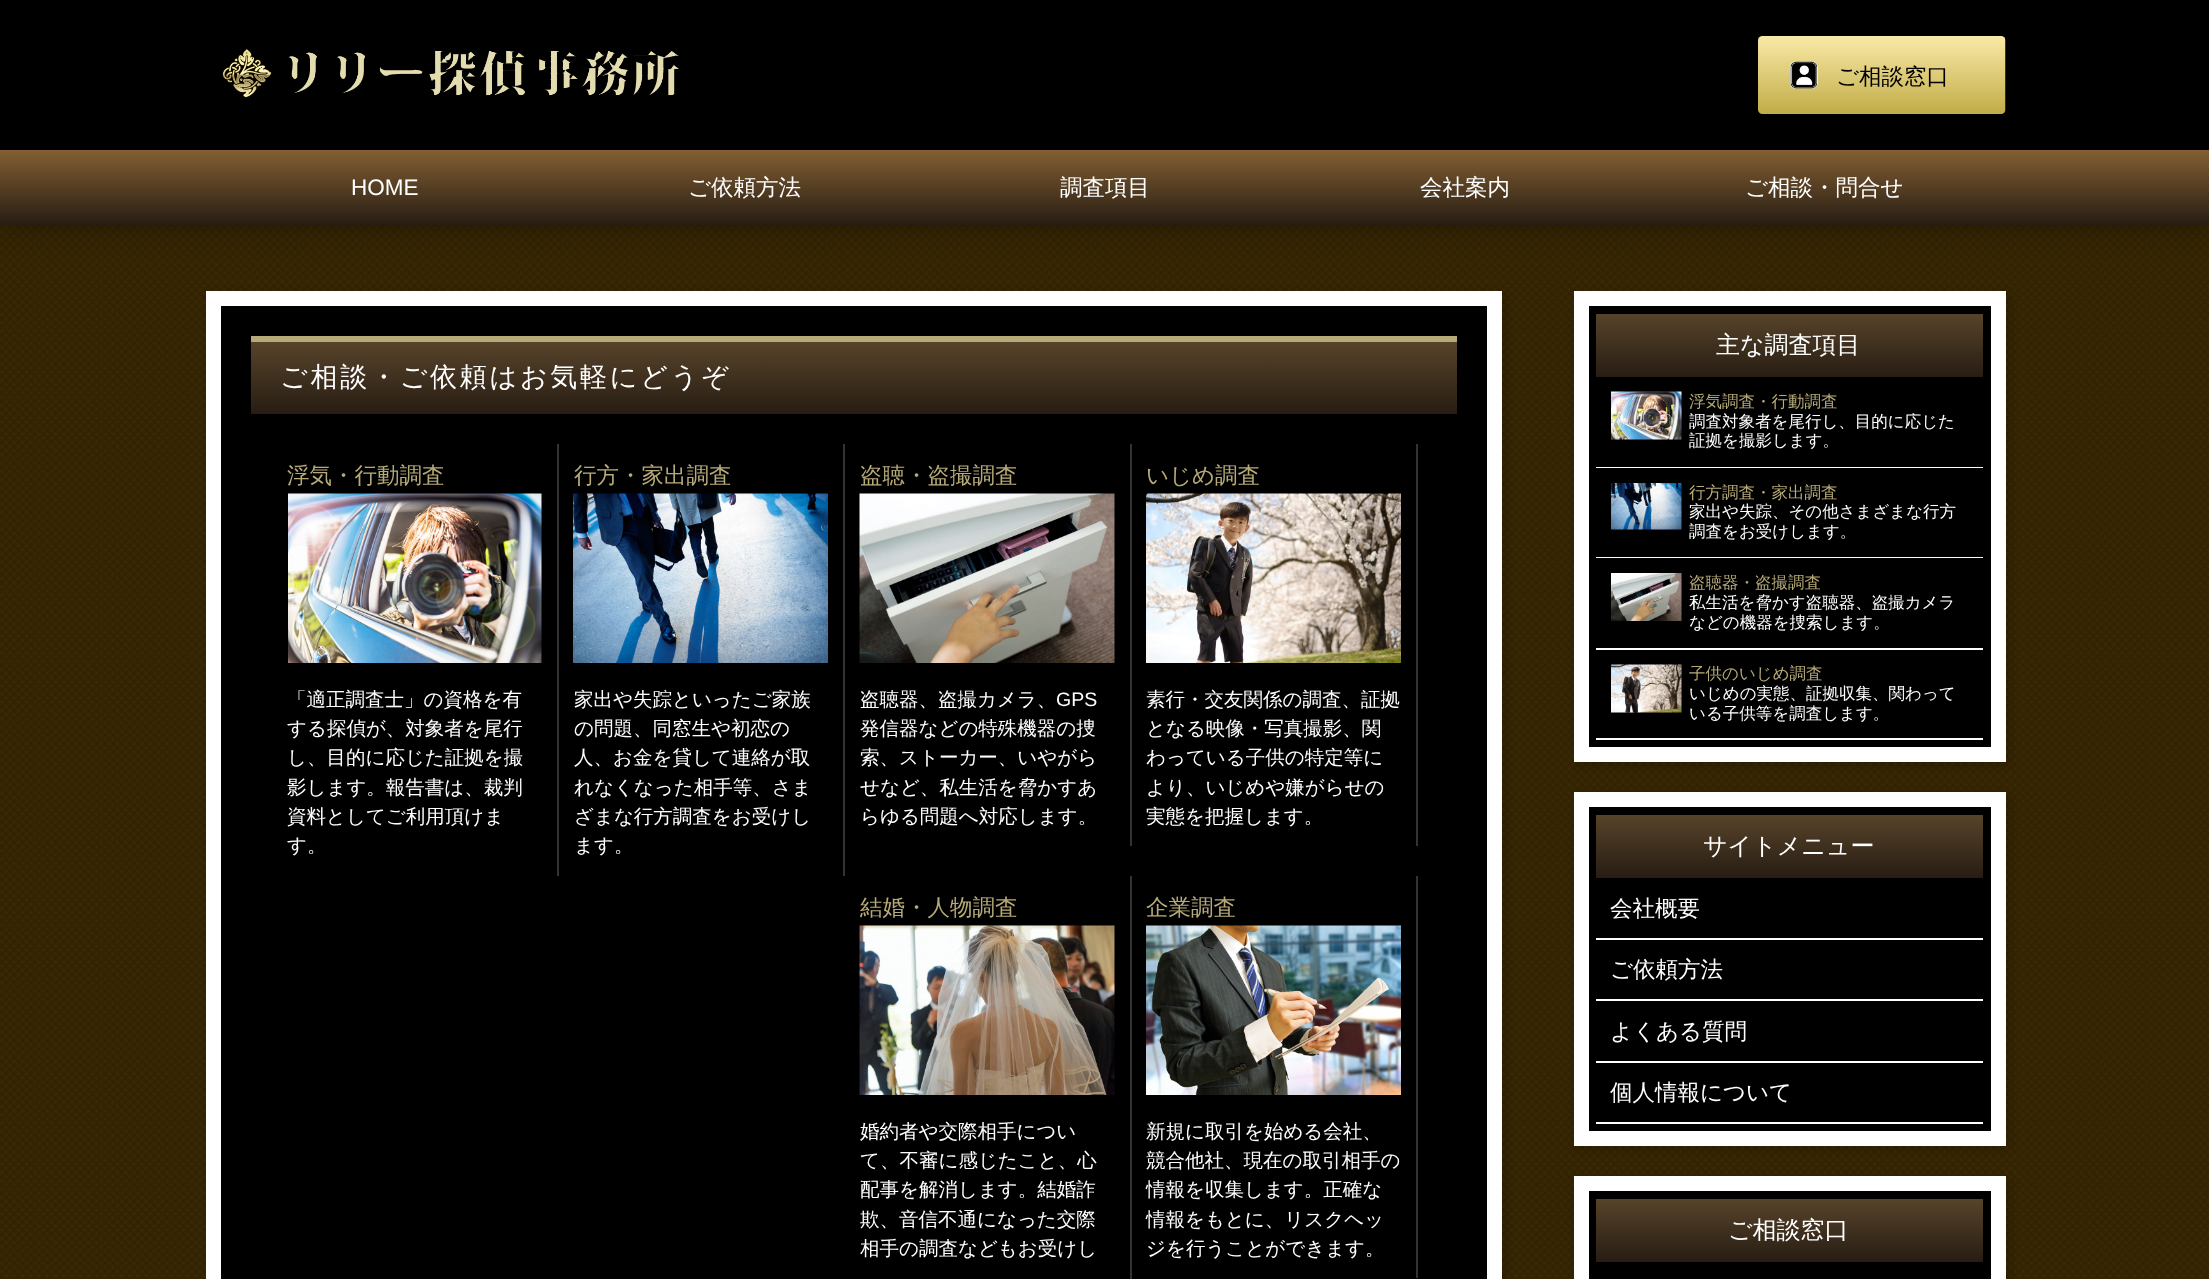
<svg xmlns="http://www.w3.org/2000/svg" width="2209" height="1279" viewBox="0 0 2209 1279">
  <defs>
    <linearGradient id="g1" gradientUnits="userSpaceOnUse" x1="1105" y1="150" x2="1105" y2="225"><stop offset="0" stop-color="rgb(131,95,51)"/><stop offset="1" stop-color="rgb(39,29,19)"/></linearGradient>
    <linearGradient id="g2" gradientUnits="userSpaceOnUse" x1="854" y1="342" x2="854" y2="414"><stop offset="0" stop-color="rgb(87,67,42)"/><stop offset="1" stop-color="rgb(39,29,19)"/></linearGradient>
    <linearGradient id="g3" gradientUnits="userSpaceOnUse" x1="1790" y1="314" x2="1790" y2="377"><stop offset="0" stop-color="rgb(87,67,42)"/><stop offset="1" stop-color="rgb(39,29,19)"/></linearGradient>
    <linearGradient id="g4" gradientUnits="userSpaceOnUse" x1="1790" y1="815" x2="1790" y2="878"><stop offset="0" stop-color="rgb(87,67,42)"/><stop offset="1" stop-color="rgb(39,29,19)"/></linearGradient>
    <linearGradient id="g5" gradientUnits="userSpaceOnUse" x1="1790" y1="1199" x2="1790" y2="1262"><stop offset="0" stop-color="rgb(87,67,42)"/><stop offset="1" stop-color="rgb(39,29,19)"/></linearGradient>
  </defs>
  <rect width="100%" height="100%" fill="rgb(255,255,255)"/>
  <image x="0" y="225" width="2209" height="1054" href="pic1.png"/>
  <rect x="0" y="0" width="2209" height="150" fill="rgb(0,0,0)"/>
  <image x="222" y="48" width="457" height="50" href="pic2.png"/>
  <rect x="0" y="150" width="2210" height="75" fill="rgba(0,0,0,0.4)" filter="blur(15px)"/>
  <image x="1758" y="36" width="248" height="78" href="pic3.png"/>
  <text x="1836" y="84" font-family="WenQuanYi Zen Hei" font-size="22.5" font-weight="500" fill="rgb(0,0,0)">ご相談窓口</text>
  <rect x="0" y="150" width="2209" height="75" fill="url(#g1)"/>
  <text x="351" y="195" font-family="Liberation Sans" font-size="22.5" fill="rgb(255,255,255)">HOME</text>
  <g font-family="WenQuanYi Zen Hei" font-size="22.5" font-weight="500" fill="rgb(255,255,255)">
    <text x="688" y="195">ご依頼方法</text>
    <text x="1060" y="195">調査項目</text>
    <text x="1420" y="195">会社案内</text>
    <text x="1745" y="195">ご相談・問合せ</text>
  </g>
  <rect x="209" y="294" width="1296" height="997" fill="rgba(0,0,0,0.2)" filter="blur(4px)"/>
  <rect x="213.5" y="298.5" width="1281" height="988" fill="rgb(0,0,0)" stroke="rgb(255,255,255)" stroke-width="15"/>
  <rect x="251" y="342" width="1206" height="72" fill="url(#g2)"/>
  <rect x="251" y="336" width="1206" height="6" fill="rgb(182,170,119)"/>
  <text x="280" y="386" font-family="WenQuanYi Zen Hei" font-size="27" font-weight="500" letter-spacing="2.75" fill="rgb(255,255,255)">ご相談・ご依頼はお気軽にどうぞ</text>
  <rect x="557" y="444" width="2" height="432" fill="rgb(51,51,51)"/>
  <text x="287" y="483" font-family="WenQuanYi Zen Hei" font-size="22.5" font-weight="500" fill="rgb(182,170,119)">浮気・行動調査</text>
  <image x="288" y="493" width="254" height="170" href="pic4.png"/>
  <g font-family="WenQuanYi Zen Hei" font-size="19.5" font-weight="500" fill="rgb(255,255,255)">
    <text>
      <tspan x="287" y="706">「適正調査士」の資格を有</tspan>
      <tspan x="287" y="735">する探偵が、対象者を尾行</tspan>
      <tspan x="287" y="764">し、目的に応じた証拠を撮</tspan>
      <tspan x="287" y="794">影します。報告書は、裁判</tspan>
      <tspan x="287" y="823">資料としてご利用頂けま</tspan>
      <tspan x="287" y="852">す。</tspan>
    </text>
  </g>
  <rect x="843" y="444" width="2" height="432" fill="rgb(51,51,51)"/>
  <text x="574" y="483" font-family="WenQuanYi Zen Hei" font-size="22.5" font-weight="500" fill="rgb(182,170,119)">行方・家出調査</text>
  <image x="573" y="493" width="255" height="170" href="pic5.png"/>
  <g font-family="WenQuanYi Zen Hei" font-size="19.5" font-weight="500" fill="rgb(255,255,255)">
    <text>
      <tspan x="574" y="706">家出や失踪といったご家族</tspan>
      <tspan x="574" y="735">の問題、同窓生や初恋の</tspan>
      <tspan x="574" y="764">人、お金を貸して連絡が取</tspan>
      <tspan x="574" y="794">れなくなった相手等、さま</tspan>
      <tspan x="574" y="823">ざまな行方調査をお受けし</tspan>
      <tspan x="574" y="852">ます。</tspan>
    </text>
  </g>
  <rect x="1130" y="444" width="2" height="402" fill="rgb(51,51,51)"/>
  <text x="860" y="483" font-family="WenQuanYi Zen Hei" font-size="22.5" font-weight="500" fill="rgb(182,170,119)">盗聴・盗撮調査</text>
  <image x="859" y="493" width="256" height="170" href="pic6.png"/>
  <text x="860" y="706" font-family="WenQuanYi Zen Hei" font-size="19.5" font-weight="500" fill="rgb(255,255,255)">盗聴器、盗撮カメラ、</text>
  <text x="1056" y="706" font-family="Liberation Sans" font-size="19.5" fill="rgb(255,255,255)">GPS</text>
  <g font-family="WenQuanYi Zen Hei" font-size="19.5" font-weight="500" fill="rgb(255,255,255)">
    <text>
      <tspan x="860" y="735">発信器などの特殊機器の捜</tspan>
      <tspan x="860" y="764">索、ストーカー、いやがら</tspan>
      <tspan x="860" y="794">せなど、私生活を脅かすあ</tspan>
      <tspan x="860" y="823">らゆる問題へ対応します。</tspan>
    </text>
  </g>
  <rect x="1416" y="444" width="2" height="402" fill="rgb(51,51,51)"/>
  <text x="1146" y="483" font-family="WenQuanYi Zen Hei" font-size="22.5" font-weight="500" fill="rgb(182,170,119)">いじめ調査</text>
  <image x="1146" y="493" width="255" height="170" href="pic7.png"/>
  <g font-family="WenQuanYi Zen Hei" font-size="19.5" font-weight="500" fill="rgb(255,255,255)">
    <text>
      <tspan x="1146" y="706">素行・交友関係の調査、証拠</tspan>
      <tspan x="1146" y="735">となる映像・写真撮影、関</tspan>
      <tspan x="1146" y="764">わっている子供の特定等に</tspan>
      <tspan x="1146" y="794">より、いじめや嫌がらせの</tspan>
      <tspan x="1146" y="823">実態を把握します。</tspan>
    </text>
  </g>
  <rect x="1130" y="876" width="2" height="403" fill="rgb(51,51,51)"/>
  <text x="860" y="915" font-family="WenQuanYi Zen Hei" font-size="22.5" font-weight="500" fill="rgb(182,170,119)">結婚・人物調査</text>
  <image x="859" y="925" width="256" height="170" href="pic8.png"/>
  <g font-family="WenQuanYi Zen Hei" font-size="19.5" font-weight="500" fill="rgb(255,255,255)">
    <text>
      <tspan x="860" y="1138">婚約者や交際相手につい</tspan>
      <tspan x="860" y="1167">て、不審に感じたこと、心</tspan>
      <tspan x="860" y="1196">配事を解消します。結婚詐</tspan>
      <tspan x="860" y="1226">欺、音信不通になった交際</tspan>
      <tspan x="860" y="1255">相手の調査などもお受けし</tspan>
    </text>
  </g>
  <rect x="1416" y="876" width="2" height="402" fill="rgb(51,51,51)"/>
  <text x="1146" y="915" font-family="WenQuanYi Zen Hei" font-size="22.5" font-weight="500" fill="rgb(182,170,119)">企業調査</text>
  <image x="1146" y="925" width="255" height="170" href="pic9.png"/>
  <g font-family="WenQuanYi Zen Hei" font-size="19.5" font-weight="500" fill="rgb(255,255,255)">
    <text>
      <tspan x="1146" y="1138">新規に取引を始める会社、</tspan>
      <tspan x="1146" y="1167">競合他社、現在の取引相手の</tspan>
      <tspan x="1146" y="1196">情報を収集します。正確な</tspan>
      <tspan x="1146" y="1226">情報をもとに、リスクヘッ</tspan>
      <tspan x="1146" y="1255">ジを行うことができます。</tspan>
    </text>
  </g>
  <rect x="1577" y="294" width="432" height="471" fill="rgba(0,0,0,0.2)" filter="blur(4px)"/>
  <rect x="1581.5" y="298.5" width="417" height="456" fill="rgb(0,0,0)" stroke="rgb(255,255,255)" stroke-width="15"/>
  <rect x="1596" y="314" width="387" height="63" fill="url(#g3)"/>
  <text x="1716" y="353" font-family="WenQuanYi Zen Hei" font-size="24" font-weight="500" fill="rgb(255,255,255)">主な調査項目</text>
  <rect x="1596" y="467" width="387" height="1" fill="rgb(255,255,255)"/>
  <image x="1611" y="391" width="71" height="49" href="pic10.png"/>
  <text x="1689" y="407" font-family="WenQuanYi Zen Hei" font-size="16.5" font-weight="500" fill="rgb(182,170,119)">浮気調査・行動調査</text>
  <g font-family="WenQuanYi Zen Hei" font-size="16.5" font-weight="500" fill="rgb(255,255,255)">
    <text>
      <tspan x="1689" y="427">調査対象者を尾行し、目的に応じた</tspan>
      <tspan x="1689" y="446">証拠を撮影します。</tspan>
    </text>
  </g>
  <rect x="1596" y="557" width="387" height="1" fill="rgb(255,255,255)"/>
  <image x="1611" y="483" width="71" height="47" href="pic11.png"/>
  <text x="1689" y="498" font-family="WenQuanYi Zen Hei" font-size="16.5" font-weight="500" fill="rgb(182,170,119)">行方調査・家出調査</text>
  <g font-family="WenQuanYi Zen Hei" font-size="16.5" font-weight="500" fill="rgb(255,255,255)">
    <text>
      <tspan x="1689" y="517">家出や失踪、その他さまざまな行方</tspan>
      <tspan x="1689" y="537">調査をお受けします。</tspan>
    </text>
  </g>
  <rect x="1596" y="648" width="387" height="2" fill="rgb(255,255,255)"/>
  <image x="1611" y="573" width="71" height="48" href="pic12.png"/>
  <text x="1689" y="588" font-family="WenQuanYi Zen Hei" font-size="16.5" font-weight="500" fill="rgb(182,170,119)">盗聴器・盗撮調査</text>
  <g font-family="WenQuanYi Zen Hei" font-size="16.5" font-weight="500" fill="rgb(255,255,255)">
    <text>
      <tspan x="1689" y="608">私生活を脅かす盗聴器、盗撮カメラ</tspan>
      <tspan x="1689" y="628">などの機器を捜索します。</tspan>
    </text>
  </g>
  <rect x="1596" y="738" width="387" height="2" fill="rgb(255,255,255)"/>
  <image x="1611" y="664" width="71" height="49" href="pic13.png"/>
  <text x="1689" y="679" font-family="WenQuanYi Zen Hei" font-size="16.5" font-weight="500" fill="rgb(182,170,119)">子供のいじめ調査</text>
  <g font-family="WenQuanYi Zen Hei" font-size="16.5" font-weight="500" fill="rgb(255,255,255)">
    <text>
      <tspan x="1689" y="699">いじめの実態、証拠収集、関わって</tspan>
      <tspan x="1689" y="719">いる子供等を調査します。</tspan>
    </text>
  </g>
  <rect x="1577" y="795" width="432" height="354" fill="rgba(0,0,0,0.2)" filter="blur(4px)"/>
  <rect x="1581.5" y="799.5" width="417" height="339" fill="rgb(0,0,0)" stroke="rgb(255,255,255)" stroke-width="15"/>
  <rect x="1596" y="815" width="387" height="63" fill="url(#g4)"/>
  <text x="1703" y="854" font-family="WenQuanYi Zen Hei" font-size="24" font-weight="500" fill="rgb(255,255,255)">サイトメニュー</text>
  <rect x="1596" y="938" width="387" height="2" fill="rgb(255,255,255)"/>
  <text x="1610" y="916" font-family="WenQuanYi Zen Hei" font-size="22.5" font-weight="500" fill="rgb(255,255,255)">会社概要</text>
  <rect x="1596" y="999" width="387" height="2" fill="rgb(255,255,255)"/>
  <text x="1610" y="977" font-family="WenQuanYi Zen Hei" font-size="22.5" font-weight="500" fill="rgb(255,255,255)">ご依頼方法</text>
  <rect x="1596" y="1061" width="387" height="2" fill="rgb(255,255,255)"/>
  <text x="1610" y="1039" font-family="WenQuanYi Zen Hei" font-size="22.5" font-weight="500" fill="rgb(255,255,255)">よくある質問</text>
  <rect x="1596" y="1122" width="387" height="2" fill="rgb(255,255,255)"/>
  <text x="1610" y="1100" font-family="WenQuanYi Zen Hei" font-size="22.5" font-weight="500" fill="rgb(255,255,255)">個人情報について</text>
  <rect x="1577" y="1179" width="432" height="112" fill="rgba(0,0,0,0.2)" filter="blur(4px)"/>
  <rect x="1581.5" y="1183.5" width="417" height="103" fill="rgb(0,0,0)" stroke="rgb(255,255,255)" stroke-width="15"/>
  <rect x="1596" y="1199" width="387" height="63" fill="url(#g5)"/>
  <text x="1728" y="1238" font-family="WenQuanYi Zen Hei" font-size="24" font-weight="500" fill="rgb(255,255,255)">ご相談窓口</text>
</svg>
